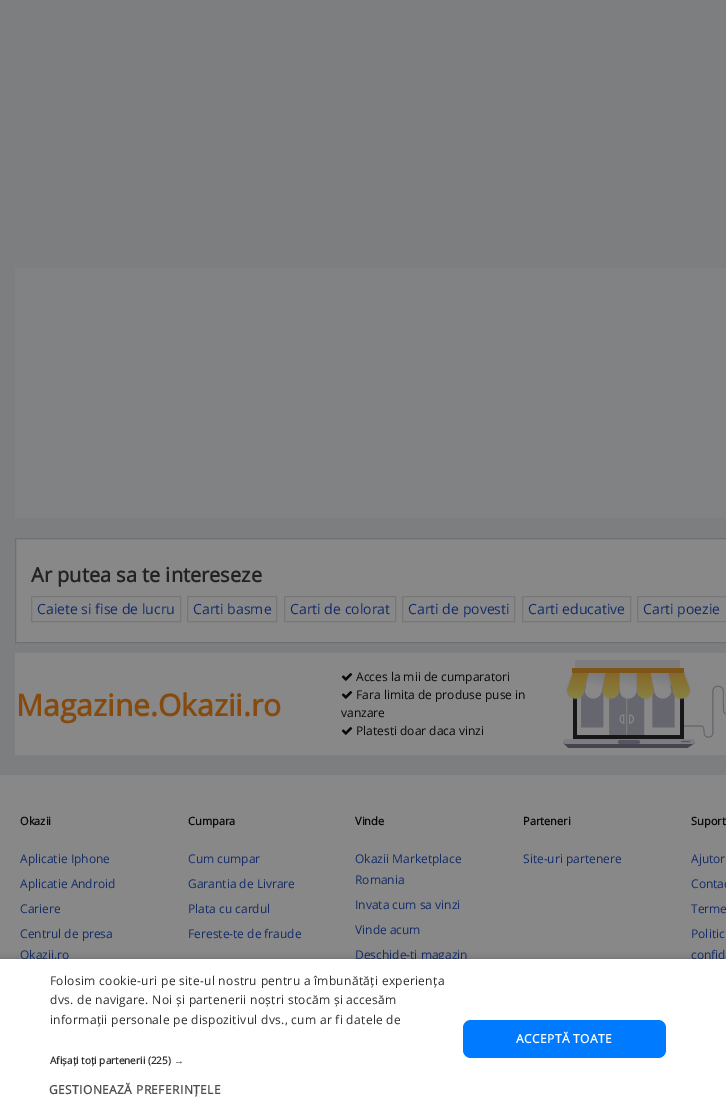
%!PS
<< /PageSize [726 1120] /PageUsesTransparency true >> setpagedevice
/alpha { dup .setfillconstantalpha .setstrokeconstantalpha } def
/roundrect { 5 dict begin { /r /h /w /y /x } { exch def } forall
  x r add y moveto x w add y 2 copy h add r arct x w add y h add x 1 index r arct
  x y h add x y r arct x y 2 copy exch w add exch r arct closepath end } def
/shadow { 12 dict begin { /a /b /q /h /w /y /x } { exch def } forall gsave /was 0 def
  9 -2 -9 { dup b mul 4 div /e exch def 1 sub .425 mul 2.718 exch exp 1 add a .99 .min exch div /now exch def
    1 1 now sub 1 was sub div sub alpha /was now def
    w h .min e 2 mul add 0 gt { x e sub y e sub w e 2 mul add h e 2 mul add
      q e add b .6 mul add w h .min 2 div e add .min 0 .max roundrect fill } if } for grestore end } def
/picture { 5 dict begin { /h /w /y /x /name } { exch def } forall
  gsave x y translate w h scale
  w h 8 [w 0 0 h 0 0] name (r) file false 3 colorimage grestore end } def
0 .pushpdf14devicefilter
0 1120 translate 1 -1 scale
4 setmiterlimit
0.49 0.494 0.502 setrgbcolor
0 0 726 1120 rectfill
0.506 0.51 0.514 setrgbcolor
15 268 711 250 rectfill
0.533 setgray
newpath 15.5 538.5 moveto 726.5 538.5 lineto 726.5 642.5 lineto 15.5 642.5 lineto closepath gsave fill grestore
0.435 setgray
stroke
/OpenSans-Bold [20 0 0 -20 0 0] selectfont
0.133 setgray
31 582 moveto (Ar putea sa te intereseze) show
0.467 setgray
31.5 596.5 149 25 rectstroke
/OpenSans-Regular [14 0 0 -14 0 0] selectfont
0.075 0.173 0.408 setrgbcolor
37 614 moveto (Caiete si fise de lucru) show
0.467 setgray
187.5 596.5 89 25 rectstroke
0.075 0.173 0.408 setrgbcolor
193 614 moveto (Carti basme) show
0.467 setgray
284.5 596.5 111 25 rectstroke
0.075 0.173 0.408 setrgbcolor
290 614 moveto (Carti de colorat) show
0.467 setgray
402.5 596.5 112 25 rectstroke
0.075 0.173 0.408 setrgbcolor
408 614 moveto (Carti de povesti) show
0.467 setgray
522.5 596.5 108 25 rectstroke
0.075 0.173 0.408 setrgbcolor
528 614 moveto (Carti educative) show
0.467 setgray
637.5 596.5 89 25 rectstroke
0.075 0.173 0.408 setrgbcolor
643 614 moveto (Carti poezie) show
0.533 setgray
15 653 711 102 rectfill
/OpenSans-Bold [30 0 0 -30 0 0] selectfont
0.522 0.29 0.055 setrgbcolor
16 716 moveto (Magazine.Okazii.ro) show
(img1.rgb) 341 673 12 8 picture
/OpenSans-Regular [12 0 0 -12 0 0] selectfont
0.035 setgray
356 681 moveto (Acces la mii de cumparatori) show
(img1.rgb) 341 691 12 8 picture
356 699 moveto (Fara limita de produse puse in) show
341 717 moveto (vanzare) show
(img1.rgb) 341 727 12 8 picture
356 735 moveto (Platesti doar daca vinzi) show
(img2.rgb) 563 660 163 88 picture
0.533 setgray
0 775 726 184 rectfill
/OpenSans-Bold [11 0 0 -11 0 0] selectfont
0.035 setgray
20 825 moveto (Okazii) show
/OpenSans-Regular [12 0 0 -12 0 0] selectfont
0.075 0.173 0.408 setrgbcolor
20 863 moveto (Aplicatie Iphone) show
20 888 moveto (Aplicatie Android) show
20 913 moveto (Cariere) show
20 938 moveto (Centrul de presa) show
20 959 moveto (Okazii.ro) show
/OpenSans-Bold [11 0 0 -11 0 0] selectfont
0.035 setgray
188 825 moveto (Cumpara) show
/OpenSans-Regular [12 0 0 -12 0 0] selectfont
0.075 0.173 0.408 setrgbcolor
188 863 moveto (Cum cumpar) show
188 888 moveto (Garantia de Livrare) show
188 913 moveto (Plata cu cardul) show
188 938 moveto (Fereste-te de fraude) show
/OpenSans-Bold [11 0 0 -11 0 0] selectfont
0.035 setgray
355 825 moveto (Vinde) show
/OpenSans-Regular [12 0 0 -12 0 0] selectfont
0.075 0.173 0.408 setrgbcolor
355 863 moveto (Okazii Marketplace) show
355 884 moveto (Romania) show
355 909 moveto (Invata cum sa vinzi) show
355 934 moveto (Vinde acum) show
355 959 moveto (Deschide-ti magazin) show
/OpenSans-Bold [11 0 0 -11 0 0] selectfont
0.035 setgray
523 825 moveto (Parteneri) show
/OpenSans-Regular [12 0 0 -12 0 0] selectfont
0.075 0.173 0.408 setrgbcolor
523 863 moveto (Site-uri partenere) show
/OpenSans-Bold [11 0 0 -11 0 0] selectfont
0.035 setgray
691 825 moveto (Suport) show
/OpenSans-Regular [12 0 0 -12 0 0] selectfont
0.075 0.173 0.408 setrgbcolor
691 863 moveto (Ajutor) show
691 888 moveto (Contac) show
691 913 moveto (Terme) show
691 938 moveto (Politic) show
691 959 moveto (confid) show
0 setgray
1 961 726 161 0 4 0.35 shadow
1 setgray
0 959 726 161 rectfill
0.176 setgray
50 985 moveto 0.3 0 (Folosim cookie-uri pe site-ul nostru pentru a îmbunătăți experiența) ashow
50 1004 moveto 0.3 0 (dvs. de navigare. Noi și partenerii noștri stocăm și accesăm) ashow
50 1024 moveto 0.3 0 (informații personale pe dispozitivul dvs., cum ar fi datele de) ashow
/OpenSans-Bold [10 0 0 -10 0 0] selectfont
50 1064 moveto (Afișați toți partenerii \(225\)) show
/LiberationSans-Bold [10 0 0 -10 0 0] selectfont
174 1064 moveto (→) show
/OpenSans-Bold [12 0 0 -12 0 0] selectfont
0.302 setgray
49 1094 moveto 0.4 0 (GESTIONEAZĂ PREFERINȚELE) ashow
0 0.482 1 setrgbcolor
463 1020 203 38 8 roundrect fill
1 setgray
516 1043 moveto 0.4 0 (ACCEPTĂ TOATE) ashow
.poppdf14devicefilter showpage
